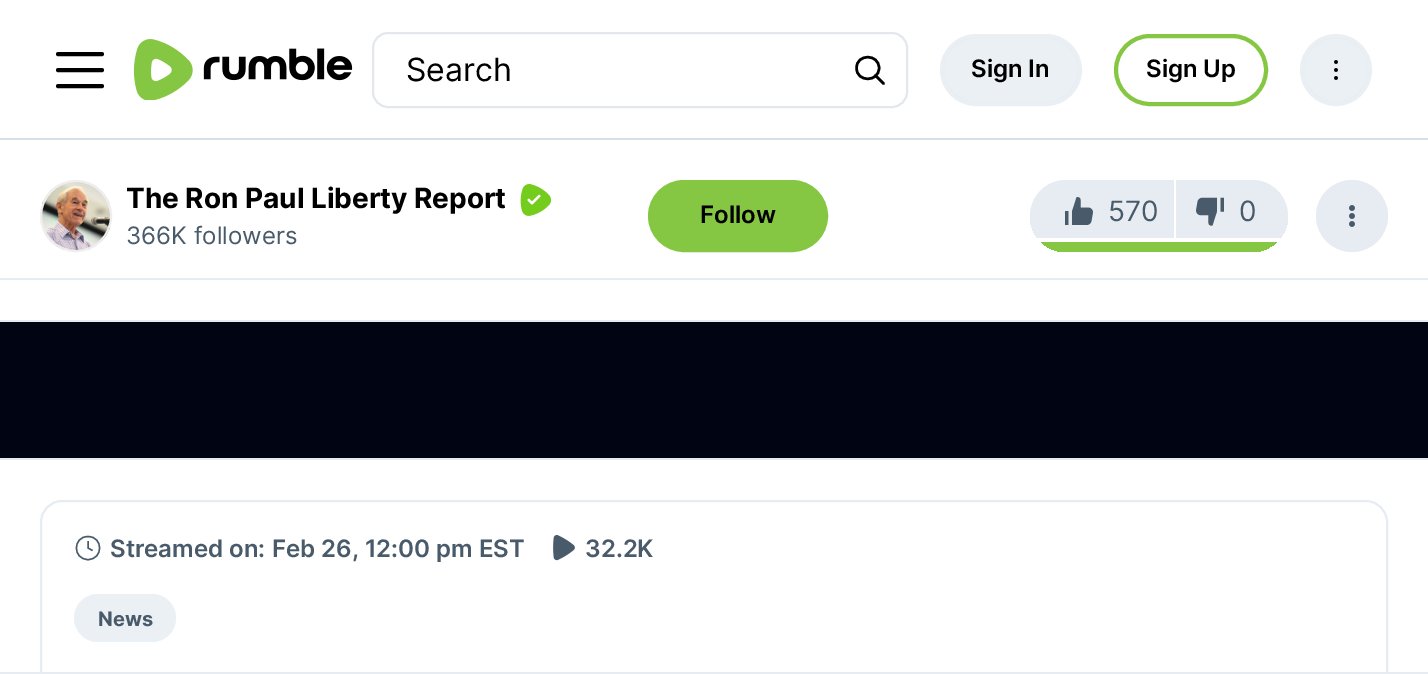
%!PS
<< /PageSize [1428 674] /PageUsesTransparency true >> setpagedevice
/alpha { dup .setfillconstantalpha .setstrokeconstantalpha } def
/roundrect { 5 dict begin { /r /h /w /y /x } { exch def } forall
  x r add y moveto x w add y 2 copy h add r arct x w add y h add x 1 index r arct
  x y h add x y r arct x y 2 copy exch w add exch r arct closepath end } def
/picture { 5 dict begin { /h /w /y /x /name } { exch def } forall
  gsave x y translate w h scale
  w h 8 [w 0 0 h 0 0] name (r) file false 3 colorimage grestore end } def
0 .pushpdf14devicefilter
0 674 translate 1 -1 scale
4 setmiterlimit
1 setgray
0 0 1428 674 rectfill
0.839 0.878 0.918 setrgbcolor
0 138 1428 2 rectfill
0 setgray
4 setlinewidth
1 setlinecap
1 setlinejoin
newpath 58 54 moveto 102 54 lineto 58 70 moveto 102 70 lineto 58 86 moveto 102 86 lineto stroke
(img1.rgb) 133 39 60 61 picture
(img2.rgb) 203 48 150 33 picture
0.894 0.91 0.925 setrgbcolor
2 setlinewidth
0 setlinecap
0 setlinejoin
373 33 534 74 15 roundrect stroke
/Inter-Regular [32 0 0 -32 0 0] selectfont
0 setgray
406 81 moveto (Search) show
2.5 setlinewidth
1 setlinecap
newpath 875.5 75.5 moveto 883.5 83.5 lineto 856.5 68 moveto 856.5 82.5 879 82.5 879 68 curveto 879 53.5 856.5 53.5 856.5 68 curveto stroke
0.922 0.941 0.961 setrgbcolor
944 38 134 64 32 roundrect fill
0.5 alpha
0.839 0.878 0.918 setrgbcolor
4 setlinewidth
0 setlinecap
942 36 138 68 34 roundrect stroke
/Inter-SemiBold [24 0 0 -24 0 0] selectfont
1 alpha
0 setgray
971 77 moveto (Sign In) show
0.522 0.78 0.259 setrgbcolor
1116 36 150 68 34 roundrect stroke
0 setgray
1146 77 moveto (Sign Up) show
0.922 0.941 0.961 setrgbcolor
newpath 1336 70 32 0 360 arc closepath fill
0.5 alpha
0.839 0.878 0.918 setrgbcolor
newpath 1336 70 34 0 360 arc closepath stroke
1 alpha
(img3.rgb) 1334 60 4 20 picture
0.902 0.925 0.949 setrgbcolor
0 278 1428 2 rectfill
(img4.rgb) 42 182 68 68 picture
0.933 setgray
2 setlinewidth
newpath 76 216 35 0 360 arc closepath stroke
/Inter-Bold [28 0 0 -28 0 0] selectfont
0 setgray
126 208 moveto (The Ron Paul Liberty Report) show
(img5.rgb) 520 184 31 32 picture
/Inter-Regular [24 0 0 -24 0 0] selectfont
0.286 0.353 0.416 setrgbcolor
126 244 moveto (366K followers) show
0.522 0.78 0.259 setrgbcolor
650 182 176 68 34 roundrect gsave fill grestore
4 setlinewidth
stroke
/Inter-SemiBold [24 0 0 -24 0 0] selectfont
0 setgray
700 223 moveto (Follow) show
gsave
1030 180 258 72 36 roundrect clip newpath
0.902 0.925 0.949 setrgbcolor
newpath 1066 180 moveto 1174 180 lineto 1174 238 lineto 1030 238 lineto 1030 216 lineto 1030 196 1046 180 1066 180 curveto closepath fill
grestore
(img6.rgb) 1065 197 28 28 picture
/Inter-Regular [28 0 0 -28 0 0] selectfont
0.286 0.353 0.416 setrgbcolor
1108 221 moveto (570) show
gsave
1030 180 258 72 36 roundrect clip newpath
0.902 0.925 0.949 setrgbcolor
newpath 1176 180 moveto 1252 180 lineto 1272 180 1288 196 1288 216 curveto 1288 238 lineto 1176 238 lineto closepath fill
grestore
(img7.rgb) 1196 197 28 29 picture
1239 221 moveto (0) show
gsave
1030 180 258 72 36 roundrect clip newpath
0.522 0.78 0.259 setrgbcolor
1030 242 258 10 5 roundrect fill
grestore
0.902 0.925 0.949 setrgbcolor
newpath 1352 216 36 0 360 arc closepath fill
(img8.rgb) 1349 205 6 22 picture
0 320 1428 2 rectfill
0 458 1428 2 rectfill
0.004 0.016 0.075 setrgbcolor
0 322 1428 136 rectfill
0.902 0.925 0.949 setrgbcolor
2 setlinewidth
41 501 1346 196 21 roundrect stroke
0.286 0.353 0.416 setrgbcolor
1.4 setlinewidth
newpath 88 559.5 moveto 103.5 559.5 103.5 536.5 88 536.5 curveto 72.5 536.5 72.5 559.5 88 559.5 curveto closepath 88 541 moveto 88 548 lineto 92.5 550.5 lineto stroke
/Inter-SemiBold [24 0 0 -24 0 0] selectfont
110 557 moveto (Streamed on:) show
272 557 moveto (Feb 26, 12:00 pm EST) show
(img9.rgb) 553 535 22 26 picture
585 557 moveto (32.2K) show
0.922 0.941 0.961 setrgbcolor
74 594 102 48 24 roundrect fill
/Inter-Bold [20 0 0 -20 0 0] selectfont
0.286 0.353 0.416 setrgbcolor
98 626 moveto (News) show
0.902 0.925 0.949 setrgbcolor
0 672 1428 2 rectfill
.poppdf14devicefilter showpage
